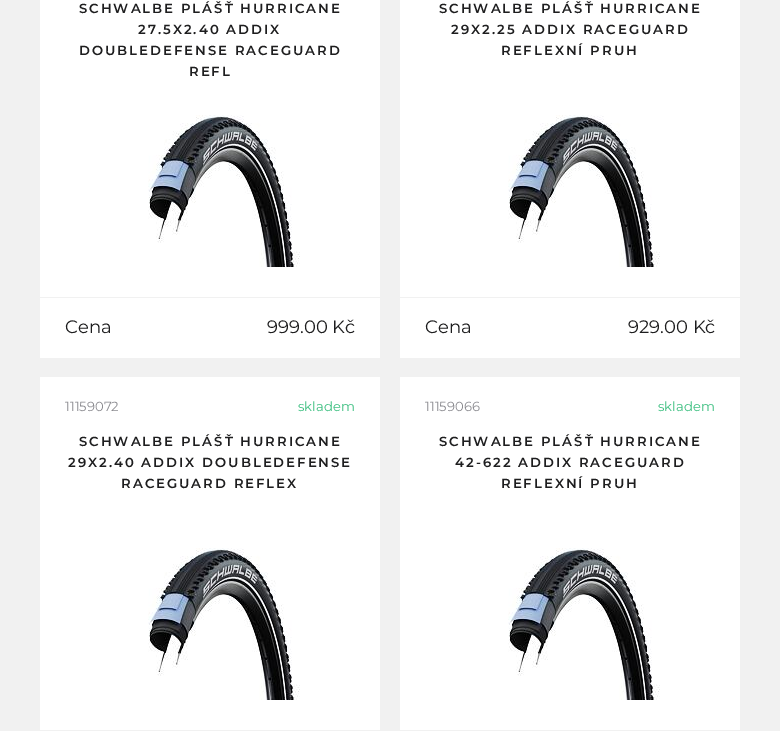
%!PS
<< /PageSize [780 731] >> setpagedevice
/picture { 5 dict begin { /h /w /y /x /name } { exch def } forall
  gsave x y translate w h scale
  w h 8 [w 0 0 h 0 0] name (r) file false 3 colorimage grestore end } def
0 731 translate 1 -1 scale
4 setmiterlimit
0.945 setgray
0 0 780 731 rectfill
1 setgray
40 0 340 358 rectfill
/Montserrat-SemiBold [13.2 0 0 -13.2 0 0] selectfont
0.118 0.118 0.122 setrgbcolor
79 13 moveto 2 0 (SCHWALBE PLÁŠŤ HURRICANE) ashow
138 34 moveto 2 0 (27.5X2.40 ADDIX) ashow
79 55 moveto 2 0 (DOUBLEDEFENSE RACEGUARD) ashow
189 76 moveto 2 0 (REFL) ashow
(img1.rgb) 148 115 152 152 picture
0.945 setgray
40 297 340 1 rectfill
/Montserrat-Regular [18 0 0 -18 0 0] selectfont
0.118 0.118 0.122 setrgbcolor
65 333 moveto (Cena) show
267 333 moveto (999.00 Kč) show
1 setgray
400 0 340 358 rectfill
/Montserrat-SemiBold [13.2 0 0 -13.2 0 0] selectfont
0.118 0.118 0.122 setrgbcolor
439 13 moveto 2 0 (SCHWALBE PLÁŠŤ HURRICANE) ashow
451 34 moveto 2 0 (29X2.25 ADDIX RACEGUARD) ashow
501 55 moveto 2 0 (REFLEXNÍ PRUH) ashow
(img1.rgb) 508 115 152 152 picture
0.945 setgray
400 297 340 1 rectfill
/Montserrat-Regular [18 0 0 -18 0 0] selectfont
0.118 0.118 0.122 setrgbcolor
425 333 moveto (Cena) show
628 333 moveto (929.00 Kč) show
1 setgray
40 377 340 353 rectfill
/Montserrat-Regular [13.2 0 0 -13.2 0 0] selectfont
0.545 0.545 0.565 setrgbcolor
65 411 moveto (11159072) show
0.235 0.749 0.502 setrgbcolor
298 411 moveto (skladem) show
/Montserrat-SemiBold [13.2 0 0 -13.2 0 0] selectfont
0.118 0.118 0.122 setrgbcolor
79 446 moveto 2 0 (SCHWALBE PLÁŠŤ HURRICANE) ashow
68 467 moveto 2 0 (29X2.40 ADDIX DOUBLEDEFENSE) ashow
121 488 moveto 2 0 (RACEGUARD REFLEX) ashow
(img1.rgb) 148 548 152 152 picture
1 setgray
400 377 340 353 rectfill
/Montserrat-Regular [13.2 0 0 -13.2 0 0] selectfont
0.545 0.545 0.565 setrgbcolor
425 411 moveto (11159066) show
0.235 0.749 0.502 setrgbcolor
658 411 moveto (skladem) show
/Montserrat-SemiBold [13.2 0 0 -13.2 0 0] selectfont
0.118 0.118 0.122 setrgbcolor
439 446 moveto 2 0 (SCHWALBE PLÁŠŤ HURRICANE) ashow
455 467 moveto 2 0 (42-622 ADDIX RACEGUARD) ashow
501 488 moveto 2 0 (REFLEXNÍ PRUH) ashow
(img1.rgb) 508 548 152 152 picture
showpage
